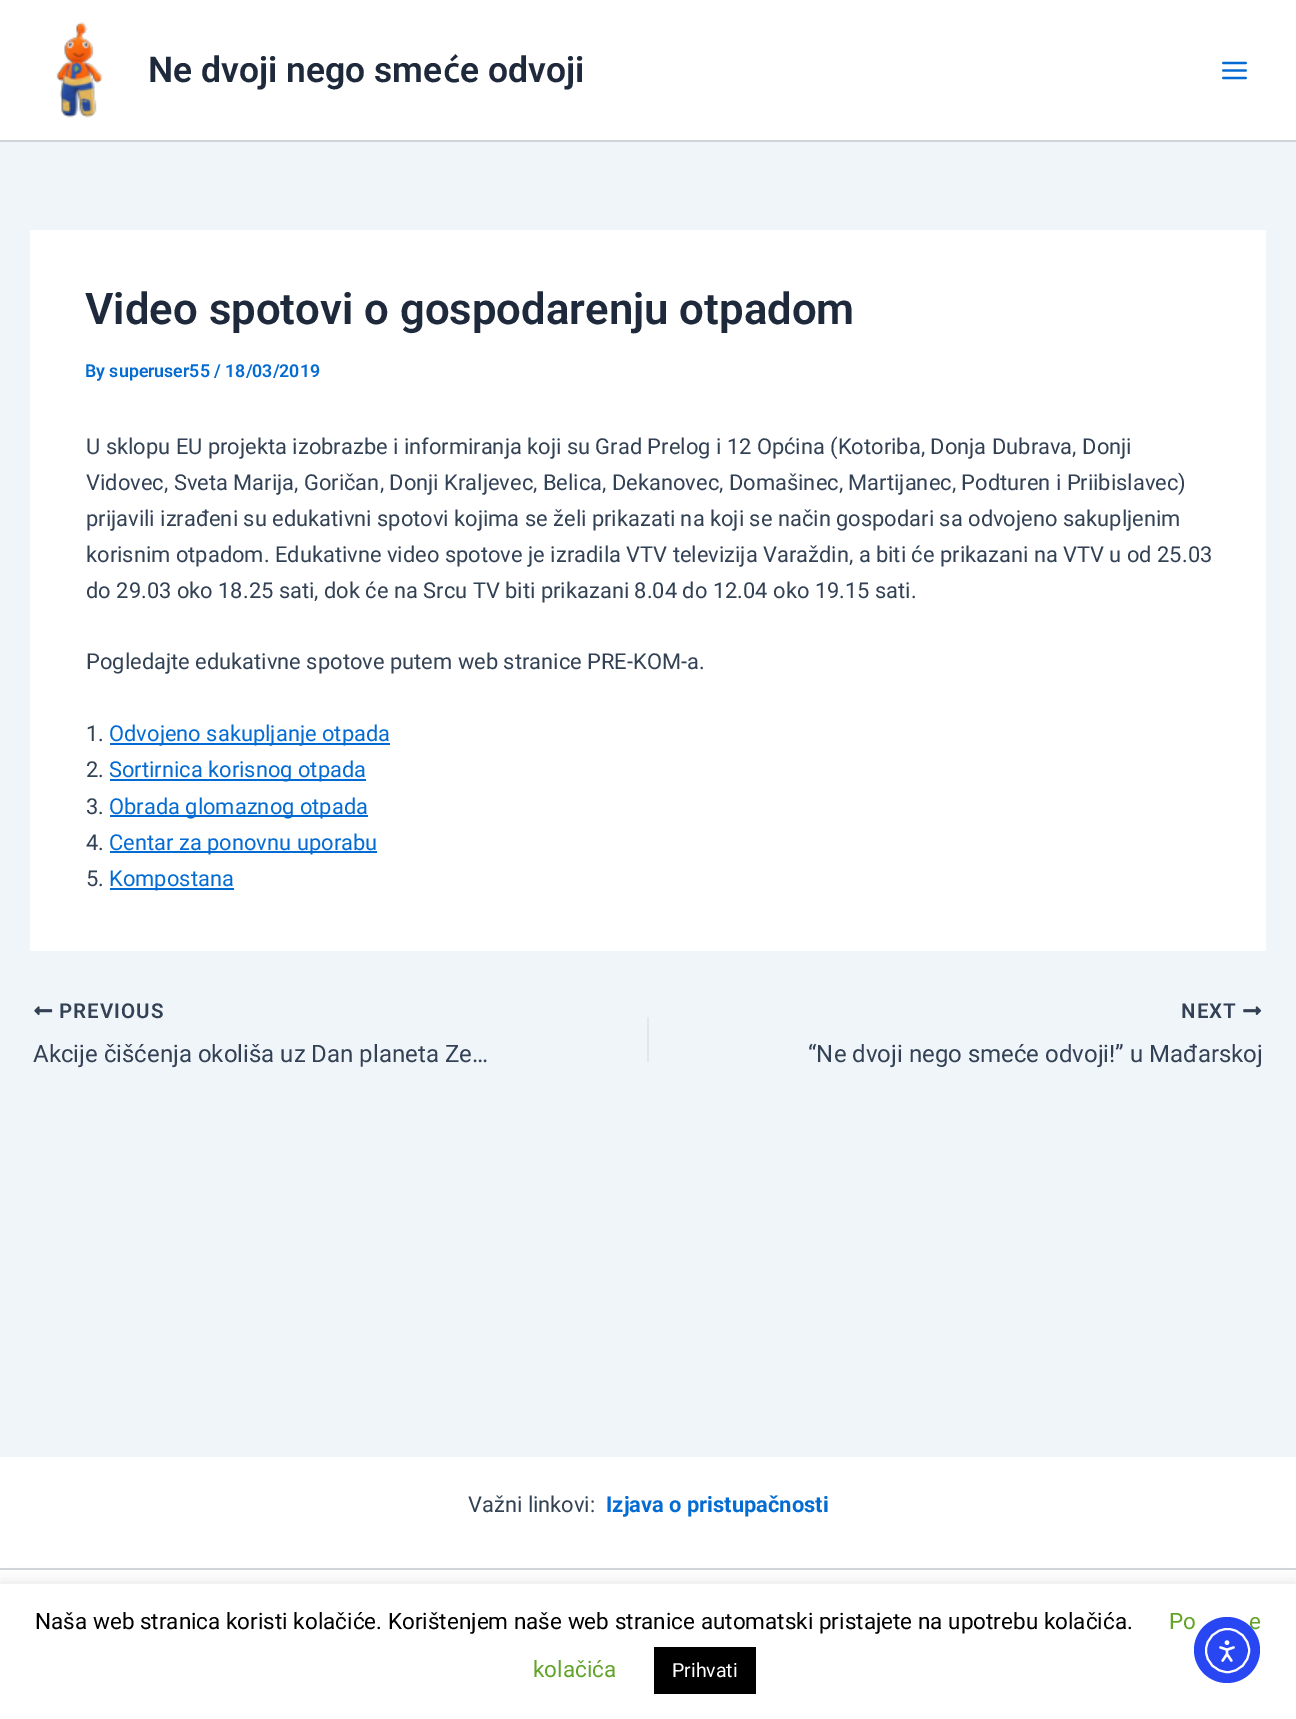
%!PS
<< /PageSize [1296 1719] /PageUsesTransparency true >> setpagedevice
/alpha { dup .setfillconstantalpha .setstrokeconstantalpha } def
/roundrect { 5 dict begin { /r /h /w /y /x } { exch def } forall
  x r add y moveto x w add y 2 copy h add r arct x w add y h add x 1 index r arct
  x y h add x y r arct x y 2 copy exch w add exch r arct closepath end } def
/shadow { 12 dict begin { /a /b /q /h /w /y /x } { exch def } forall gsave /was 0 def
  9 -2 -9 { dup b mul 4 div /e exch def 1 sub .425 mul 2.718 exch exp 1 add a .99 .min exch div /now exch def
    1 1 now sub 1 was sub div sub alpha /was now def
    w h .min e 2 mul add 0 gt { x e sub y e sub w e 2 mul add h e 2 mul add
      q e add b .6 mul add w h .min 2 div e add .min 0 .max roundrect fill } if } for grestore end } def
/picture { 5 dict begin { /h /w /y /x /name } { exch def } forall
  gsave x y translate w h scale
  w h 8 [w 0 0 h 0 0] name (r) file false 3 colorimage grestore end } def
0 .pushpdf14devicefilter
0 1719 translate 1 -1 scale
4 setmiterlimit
0.941 0.961 0.98 setrgbcolor
0 0 1296 1719 rectfill
1 setgray
0 0 1296 140 rectfill
0.82 0.835 0.859 setrgbcolor
0 140 1296 2 rectfill
(img1.rgb) 56 22 47 96 picture
/Roboto-SemiBold [35.5 0 0 -35.5 0 0] selectfont
0.118 0.161 0.231 setrgbcolor
148 82 moveto (Ne dvoji nego sme) show
/Ubuntu-SemiBold [35.5 0 0 -35.5 0 0] selectfont
443 82 moveto (ć) show
/Roboto-SemiBold [35.5 0 0 -35.5 0 0] selectfont
460 82 moveto (e odvoji) show
(img2.rgb) 1222 61 25 19 picture
1 setgray
30 230 1236 721 rectfill
/Roboto-SemiBold [43.75 0 0 -43.75 0 0] selectfont
0.118 0.161 0.231 setrgbcolor
85 324 moveto (Video spotovi o gospodarenju otpadom) show
/Roboto-SemiBold [17.75 0 0 -17.75 0 0] selectfont
0.016 0.42 0.824 setrgbcolor
85 377 moveto (By superuser55 / 18/03/2019) show
/Roboto-Regular [21.9 0 0 -21.9 0 0] selectfont
0.2 0.255 0.333 setrgbcolor
86 454 moveto (U sklopu EU projekta izobrazbe i informiranja koji su Grad Prelog i 12 Općina \(Kotoriba, Donja Dubrava, Donji) show
86 490 moveto (Vidovec, Sveta Marija, Goričan, Donji Kraljevec, Belica, Dekanovec, Domašinec, Martijanec, Podturen i Priibislavec\)) show
86 526 moveto (prijavili izrađeni su edukativni spotovi kojima se želi prikazati na koji se način gospodari sa odvojeno sakupljenim) show
86 562 moveto (korisnim otpadom. Edukativne video spotove je izradila VTV televizija Varaždin, a biti će prikazani na VTV u od 25.03) show
86 598 moveto (do 29.03 oko 18.25 sati, dok će na Srcu TV biti prikazani 8.04 do 12.04 oko 19.15 sati.) show
86 669 moveto (Pogledajte edukativne spotove putem web stranice PRE-KOM-a.) show
86 741 moveto (1.) show
0.016 0.42 0.824 setrgbcolor
110 743 280 2 rectfill
109 741 moveto (Odvojeno sakupljanje otpada) show
0.2 0.255 0.333 setrgbcolor
86 777 moveto (2.) show
0.016 0.42 0.824 setrgbcolor
110 779 256 2 rectfill
109 777 moveto (Sortirnica korisnog otpada) show
0.2 0.255 0.333 setrgbcolor
86 814 moveto (3.) show
0.016 0.42 0.824 setrgbcolor
110 815 258 2 rectfill
109 814 moveto (Obrada glomaznog otpada) show
0.2 0.255 0.333 setrgbcolor
86 850 moveto (4.) show
0.016 0.42 0.824 setrgbcolor
110 851 267 2 rectfill
109 850 moveto (Centar za ponovnu uporabu) show
0.2 0.255 0.333 setrgbcolor
86 886 moveto (5.) show
0.016 0.42 0.824 setrgbcolor
110 888 124 2 rectfill
109 886 moveto (Kompostana) show
(img3.rgb) 34 1006 19 9 picture
/Roboto-SemiBold [20.5 0 0 -20.5 0 0] selectfont
0.2 0.255 0.333 setrgbcolor
59 1018 moveto 1 0 (PREVIOUS) ashow
/Roboto-Regular [24 0 0 -24 0 0] selectfont
33 1062 moveto (Akcije čišćenja okoliša uz Dan planeta Ze…) show
0.882 0.91 0.929 setrgbcolor
647 1017 2 45 rectfill
/Roboto-SemiBold [20.5 0 0 -20.5 0 0] selectfont
0.2 0.255 0.333 setrgbcolor
1181 1018 moveto 1 0 (NEXT) ashow
(img4.rgb) 1243 1006 19 9 picture
/Roboto-Regular [24 0 0 -24 0 0] selectfont
808 1062 moveto (“Ne dvoji nego smeće odvoji!” u Mađarskoj) show
1 setgray
0 1457 1296 111 rectfill
/Roboto-Regular [21.9 0 0 -21.9 0 0] selectfont
0.2 0.255 0.333 setrgbcolor
468 1512 moveto (Važni linkovi:) show
/Roboto-Bold [21.9 0 0 -21.9 0 0] selectfont
0.016 0.42 0.824 setrgbcolor
606 1512 moveto (Izjava o pristupačnosti) show
1 setgray
0 1570 1296 14 rectfill
0.82 0.835 0.859 setrgbcolor
0 1568 1296 2 rectfill
0.675 0.671 0.671 setrgbcolor
0 1583 1296 135 0 7.5 0.3 shadow
1 setgray
0 1584 1296 135 rectfill
/Roboto-Regular [22.5 0 0 -22.5 0 0] selectfont
0 setgray
35 1629 moveto (Naša web stranica koristi kolačiće. Korištenjem naše web stranice automatski pristajete na upotrebu kolačića.) show
0.384 0.639 0.161 setrgbcolor
1169 1629 moveto (Po) show
1249 1629 moveto (e) show
533 1677 moveto (kolačića) show
0 setgray
654 1647 102 47 rectfill
/Roboto-Regular [19.5 0 0 -19.5 0 0] selectfont
1 setgray
672 1677 moveto (Prihvati) show
0.157 0.278 0.953 setrgbcolor
newpath 1227 1650 33 0 360 arc closepath fill
1 setgray
2 setlinewidth
newpath 1227.5 1650.5 21.5 0 360 arc closepath stroke
(img5.rgb) 1219 1640 16 22 picture
.poppdf14devicefilter showpage
